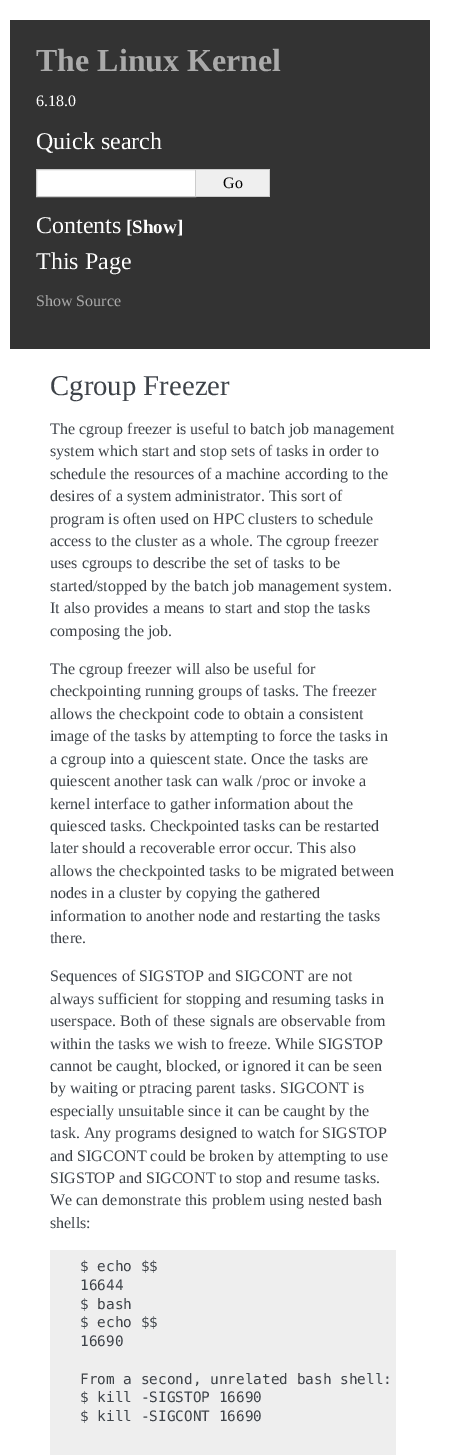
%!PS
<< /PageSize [451 1455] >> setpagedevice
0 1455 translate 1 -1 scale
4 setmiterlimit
1 setgray
0 0 451 1455 rectfill
0.2 setgray
10 20 420 329 rectfill
/LiberationSerif-Bold [32 0 0 -32 0 0] selectfont
0.667 setgray
36 71 moveto (The Linux Kernel) show
/LiberationSerif-Regular [16 0 0 -16 0 0] selectfont
1 setgray
36 106 moveto (6.18.0) show
/LiberationSerif-Regular [24 0 0 -24 0 0] selectfont
36 149 moveto (Quick search) show
newpath 36.5 169.5 moveto 195.5 169.5 lineto 195.5 196.5 lineto 36.5 196.5 lineto closepath gsave fill grestore
0.8 setgray
stroke
0.937 setgray
196 170 73 26 rectfill
0.8 setgray
196 169 74 1 rectfill
269 169 1 28 rectfill
196 196 74 1 rectfill
/LiberationSerif-Regular [16 0 0 -16 0 0] selectfont
0 setgray
223 188 moveto (Go) show
/LiberationSerif-Regular [24 0 0 -24 0 0] selectfont
1 setgray
36 233 moveto (Contents) show
/LiberationSerif-Bold [19 0 0 -19 0 0] selectfont
126 233 moveto ([Show]) show
/LiberationSerif-Regular [24 0 0 -24 0 0] selectfont
36 269 moveto (This Page) show
/LiberationSerif-Regular [16 0 0 -16 0 0] selectfont
0.667 setgray
36 306 moveto (Show Source) show
/LiberationSerif-Regular [28.75 0 0 -28.75 0 0] selectfont
0.243 0.263 0.286 setrgbcolor
50 395 moveto (Cgroup Freezer) show
/LiberationSerif-Regular [16 0 0 -16 0 0] selectfont
50 434 moveto (The cgroup freezer is useful to batch job management) show
50 456 moveto (system which start and stop sets of tasks in order to) show
50 479 moveto (schedule the resources of a machine according to the) show
50 501 moveto (desires of a system administrator. This sort of) show
50 524 moveto (program is often used on HPC clusters to schedule) show
50 546 moveto (access to the cluster as a whole. The cgroup freezer) show
50 568 moveto (uses cgroups to describe the set of tasks to be) show
50 591 moveto (started/stopped by the batch job management system.) show
50 613 moveto (It also provides a means to start and stop the tasks) show
50 636 moveto (composing the job.) show
50 674 moveto (The cgroup freezer will also be useful for) show
50 696 moveto (checkpointing running groups of tasks. The freezer) show
50 719 moveto (allows the checkpoint code to obtain a consistent) show
50 741 moveto (image of the tasks by attempting to force the tasks in) show
50 764 moveto (a cgroup into a quiescent state. Once the tasks are) show
50 786 moveto (quiescent another task can walk /proc or invoke a) show
50 809 moveto (kernel interface to gather information about the) show
50 831 moveto (quiesced tasks. Checkpointed tasks can be restarted) show
50 853 moveto (later should a recoverable error occur. This also) show
50 876 moveto (allows the checkpointed tasks to be migrated between) show
50 898 moveto (nodes in a cluster by copying the gathered) show
50 921 moveto (information to another node and restarting the tasks) show
50 943 moveto (there.) show
50 981 moveto (Sequences of SIGSTOP and SIGCONT are not) show
50 1004 moveto (always sufficient for stopping and resuming tasks in) show
50 1026 moveto (userspace. Both of these signals are observable from) show
50 1049 moveto (within the tasks we wish to freeze. While SIGSTOP) show
50 1071 moveto (cannot be caught, blocked, or ignored it can be seen) show
50 1093 moveto (by waiting or ptracing parent tasks. SIGCONT is) show
50 1116 moveto (especially unsuitable since it can be caught by the) show
50 1138 moveto (task. Any programs designed to watch for SIGSTOP) show
50 1161 moveto (and SIGCONT could be broken by attempting to use) show
50 1183 moveto (SIGSTOP and SIGCONT to stop and resume tasks.) show
50 1205 moveto (We can demonstrate this problem using nested bash) show
50 1228 moveto (shells:) show
0.933 setgray
50 1250 346 205 rectfill
/DejaVuSansMono-Regular [14.4 0 0 -14.4 0 0] selectfont
0.243 0.263 0.286 setrgbcolor
80 1271 moveto ($ echo $$) show
80 1290 moveto (16644) show
80 1309 moveto ($ bash) show
80 1327 moveto ($ echo $$) show
80 1346 moveto (16690) show
80 1384 moveto (From a second, unrelated bash shell:) show
80 1402 moveto ($ kill -SIGSTOP 16690) show
80 1421 moveto ($ kill -SIGCONT 16690) show
showpage
